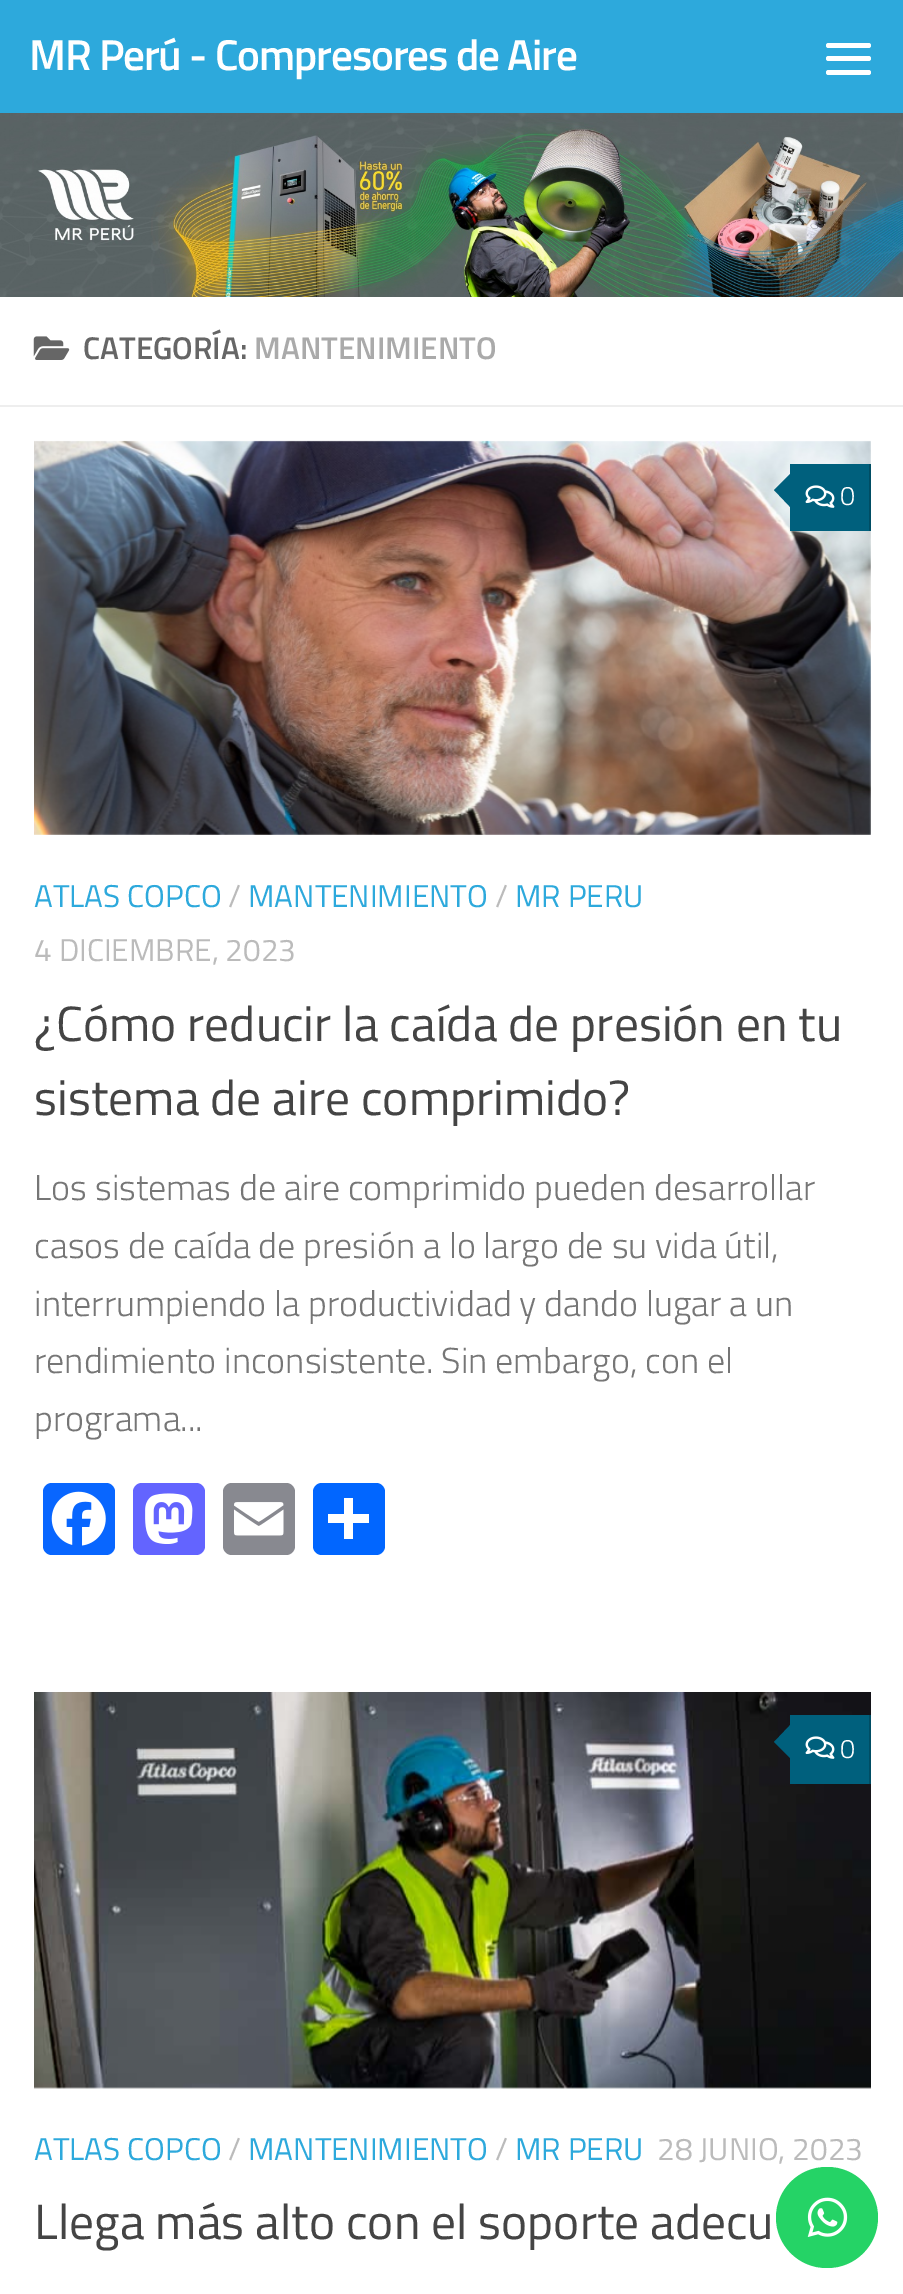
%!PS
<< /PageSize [903 2294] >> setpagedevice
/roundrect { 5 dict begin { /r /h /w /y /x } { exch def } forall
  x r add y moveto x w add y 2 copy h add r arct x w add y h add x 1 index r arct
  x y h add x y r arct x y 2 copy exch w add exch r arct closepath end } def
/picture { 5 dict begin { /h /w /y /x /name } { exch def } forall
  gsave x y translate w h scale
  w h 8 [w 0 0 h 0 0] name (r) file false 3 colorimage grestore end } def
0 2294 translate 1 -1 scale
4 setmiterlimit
1 setgray
0 0 903 2294 rectfill
0.176 0.663 0.863 setrgbcolor
0 0 903 113 rectfill
/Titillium-SemiBold [43.25 0 0 -43.25 0 0] selectfont
1 setgray
29 70 moveto -1.1 0 (MR Perú - Compresores de Aire) ashow
826 43 45 5 2.5 roundrect fill
826 56 45 5 2.5 roundrect fill
826 70 45 5 2.5 roundrect fill
(img1.rgb) 0 113 903 184 picture
0.933 setgray
0 405 903 2 rectfill
(img2.rgb) 33 336 37 24 picture
/Titillium-SemiBold [31.5 0 0 -31.5 0 0] selectfont
0.4 setgray
83 359 moveto (CATEGORÍA:) show
0.667 setgray
254 359 moveto (MANTENIMIENTO) show
(img3.rgb) 34 440 837 395 picture
0 0.376 0.49 setrgbcolor
790 464 79 67 rectfill
0 0.302 0.392 setrgbcolor
869 464 2 67 rectfill
0 0.376 0.49 setrgbcolor
newpath 794 470 moveto 794 511 lineto 774 490 lineto closepath fill
(img4.rgb) 805 485 30 23 picture
/Titillium-Light [27 0 0 -27 0 0] selectfont
1 setgray
840 505 moveto (0) show
/Titillium-Regular [31.5 0 0 -31.5 0 0] selectfont
0.176 0.663 0.863 setrgbcolor
34 907 moveto (ATLAS COPCO) show
0.733 setgray
228 907 moveto (/) show
0.176 0.663 0.863 setrgbcolor
248 907 moveto (MANTENIMIENTO) show
0.733 setgray
495 907 moveto (/) show
0.176 0.663 0.863 setrgbcolor
515 907 moveto (MR PERU) show
0.733 setgray
34 961 moveto (4 DICIEMBRE, 2023) show
/Titillium-Regular [49.5 0 0 -49.5 0 0] selectfont
0.267 setgray
34 1041 moveto (¿Cómo reducir la caída de presión en tu) show
34 1115 moveto (sistema de aire comprimido?) show
/Titillium-Light [36 0 0 -36 0 0] selectfont
0.463 setgray
34 1200 moveto (Los sistemas de aire comprimido pueden desarrollar) show
34 1258 moveto (casos de caída de presión a lo largo de su vida útil,) show
34 1316 moveto (interrumpiendo la productividad y dando lugar a un) show
34 1373 moveto (rendimiento inconsistente. Sin embargo, con el) show
34 1431 moveto (programa...) show
0.031 0.4 1 setrgbcolor
43 1483 72 72 9 roundrect fill
(img5.rgb) 51 1491 55 55 picture
0.388 0.392 1 setrgbcolor
133 1483 72 72 9 roundrect fill
(img6.rgb) 145 1493 48 51 picture
0.533 0.537 0.565 setrgbcolor
223 1483 72 72 9 roundrect fill
(img7.rgb) 234 1502 50 34 picture
0.004 0.4 1 setrgbcolor
313 1483 72 72 9 roundrect fill
1 setgray
344 1498 9 41 rectfill
328 1514 41 9 rectfill
(img8.rgb) 34 1692 837 397 picture
0 0.376 0.49 setrgbcolor
790 1715 79 69 rectfill
0 0.302 0.392 setrgbcolor
869 1715 2 69 rectfill
0 0.376 0.49 setrgbcolor
newpath 794 1721 moveto 794 1762 lineto 774 1742 lineto closepath fill
(img4.rgb) 805 1736 30 23 picture
/Titillium-Light [27 0 0 -27 0 0] selectfont
1 setgray
840 1758 moveto (0) show
/Titillium-Regular [31.5 0 0 -31.5 0 0] selectfont
0.176 0.663 0.863 setrgbcolor
34 2160 moveto (ATLAS COPCO) show
0.733 setgray
228 2160 moveto (/) show
0.176 0.663 0.863 setrgbcolor
248 2160 moveto (MANTENIMIENTO) show
0.733 setgray
495 2160 moveto (/) show
0.176 0.663 0.863 setrgbcolor
515 2160 moveto (MR PERU) show
0.733 setgray
657 2160 moveto (28 JUNIO, 2023) show
/Titillium-Regular [49.5 0 0 -49.5 0 0] selectfont
0.267 setgray
34 2239 moveto (Llega más alto con el soporte adecu) show
0.145 0.827 0.4 setrgbcolor
776 2167 102 101 50.5 roundrect fill
(img9.rgb) 807 2197 41 40 picture
showpage
